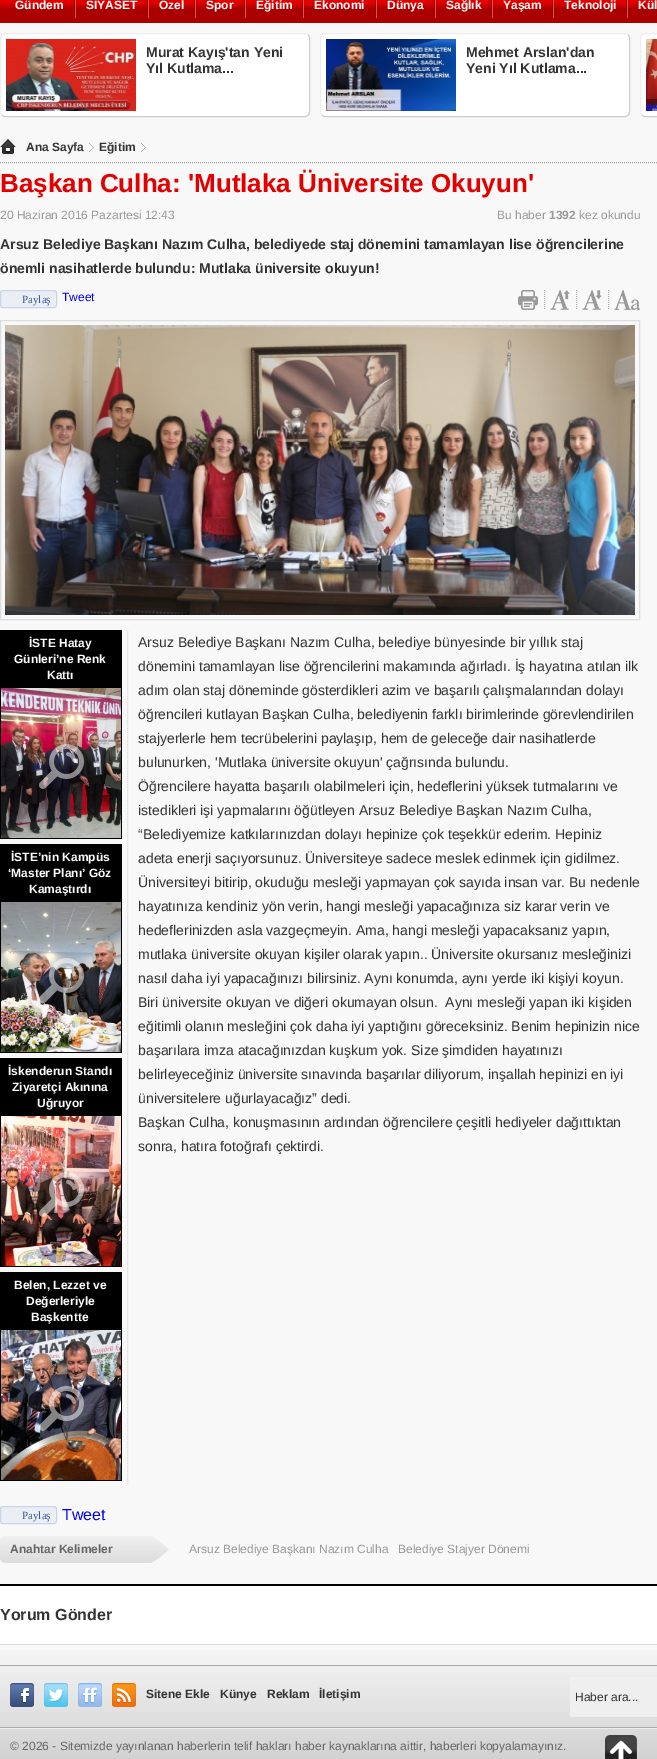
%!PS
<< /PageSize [657 1759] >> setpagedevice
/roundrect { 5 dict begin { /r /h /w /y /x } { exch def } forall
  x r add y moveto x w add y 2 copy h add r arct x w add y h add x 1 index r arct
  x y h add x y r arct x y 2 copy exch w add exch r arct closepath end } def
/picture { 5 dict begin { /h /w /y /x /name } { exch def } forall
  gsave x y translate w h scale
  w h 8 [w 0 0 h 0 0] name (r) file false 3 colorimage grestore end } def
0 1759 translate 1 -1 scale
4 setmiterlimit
0.973 setgray
0 0 657 1759 rectfill
(img1.rgb) 0 0 657 23 picture
/LiberationSans-Bold [12 0 0 -12 0 0] selectfont
1 setgray
15 9 moveto (Gündem) show
(img2.rgb) 74 0 2 18 picture
86 9 moveto (SİYASET) show
(img2.rgb) 147 0 2 18 picture
159 9 moveto (Özel) show
(img2.rgb) 194 0 2 18 picture
206 9 moveto (Spor) show
(img2.rgb) 244 0 2 18 picture
256 9 moveto (Eğitim) show
(img2.rgb) 302 0 2 18 picture
314 9 moveto (Ekonomi) show
(img2.rgb) 375 0 2 18 picture
387 9 moveto (Dünya) show
(img2.rgb) 434 0 2 18 picture
446 9 moveto (Sağlık) show
(img2.rgb) 491 0 2 18 picture
503 9 moveto (Yaşam) show
(img2.rgb) 552 0 2 18 picture
564 9 moveto (Teknoloji) show
(img2.rgb) 626 0 2 18 picture
638 9 moveto (Kül) show
0 33 310 84 5 roundrect fill
0.8 setgray
newpath 308 35 moveto 309 35.5 309.5 37 309.5 38 curveto 309.5 112 lineto 309.5 113 309 114.5 308 115 curveto 307.5 116 306 116.5 305 116.5 curveto 5 116.5 lineto 4 116.5 2.5 116 2 115 curveto stroke
0.933 setgray
newpath 2 115 moveto 1 114.5 0.5 113 0.5 112 curveto 0.5 38 lineto 0.5 37 1 35.5 2 35 curveto 2.5 34 4 33.5 5 33.5 curveto 305 33.5 lineto 306 33.5 307.5 34 308 35 curveto stroke
(img3.rgb) 6 39 130 72 picture
/LiberationSans-Bold [14 0 0 -14 0 0] selectfont
0.2 setgray
146 57 moveto (Murat Kayış'tan Yeni) show
146 73 moveto (Yıl Kutlama...) show
1 setgray
320 33 310 84 5 roundrect fill
0.8 setgray
newpath 628 35 moveto 629 35.5 629.5 37 629.5 38 curveto 629.5 112 lineto 629.5 113 629 114.5 628 115 curveto 627.5 116 626 116.5 625 116.5 curveto 325 116.5 lineto 324 116.5 322.5 116 322 115 curveto stroke
0.933 setgray
newpath 322 115 moveto 321 114.5 320.5 113 320.5 112 curveto 320.5 38 lineto 320.5 37 321 35.5 322 35 curveto 322.5 34 324 33.5 325 33.5 curveto 625 33.5 lineto 626 33.5 627.5 34 628 35 curveto stroke
(img4.rgb) 326 39 130 72 picture
0.2 setgray
466 57 moveto (Mehmet Arslan'dan) show
466 73 moveto (Yeni Yıl Kutlama...) show
1 setgray
640 33 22 84 5 roundrect fill
0.8 setgray
newpath 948 35 moveto 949 35.5 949.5 37 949.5 38 curveto 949.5 112 lineto 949.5 113 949 114.5 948 115 curveto 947.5 116 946 116.5 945 116.5 curveto 645 116.5 lineto 644 116.5 642.5 116 642 115 curveto stroke
0.933 setgray
newpath 642 115 moveto 641 114.5 640.5 113 640.5 112 curveto 640.5 38 lineto 640.5 37 641 35.5 642 35 curveto 642.5 34 644 33.5 645 33.5 curveto 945 33.5 lineto 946 33.5 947.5 34 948 35 curveto stroke
(img5.rgb) 646 39 11 72 picture
0.667 setgray
[1 1] 0 setdash
newpath 0 162.5 moveto 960 162.5 lineto stroke
(img6.rgb) 0 139 16 16 picture
/LiberationSans-Bold [12 0 0 -12 0 0] selectfont
0.2 setgray
26 151 moveto (Ana Sayfa) show
(img7.rgb) 89 143 5 9 picture
99 151 moveto (Eğitim) show
(img7.rgb) 141 143 5 9 picture
/LiberationSans-Bold [26 0 0 -26 0 0] selectfont
0.886 0 0 setrgbcolor
0 192 moveto (Başkan Culha: 'Mutlaka Üniversite Okuyun') show
/LiberationSans-Regular [12 0 0 -12 0 0] selectfont
0.6 setgray
0 219 moveto (20 Haziran 2016 Pazartesi 12:43) show
497 219 moveto (Bu haber) show
/LiberationSans-Bold [12 0 0 -12 0 0] selectfont
549 219 moveto (1392) show
/LiberationSans-Regular [12 0 0 -12 0 0] selectfont
579 219 moveto (kez okundu) show
/LiberationSans-Bold [14 0 0 -14 0 0] selectfont
0.2 setgray
0 249 moveto (Arsuz Belediye Başkanı Nazım Culha, belediyede staj dönemini tamamlayan lise öğrencilerine) show
0 273 moveto (önemli nasihatlerde bulundu: Mutlaka üniversite okuyun!) show
0.925 0.933 0.961 setrgbcolor
0.5 290.5 56 17 2.5 roundrect gsave fill grestore
0.792 0.831 0.906 setrgbcolor
[] 0 setdash
stroke
/LiberationSerif-Regular [11 0 0 -11 0 0] selectfont
0.231 0.349 0.596 setrgbcolor
22 303 moveto (Paylaş) show
/LiberationSans-Regular [12 0 0 -12 0 0] selectfont
0 0 0.933 setrgbcolor
62 301 moveto (Tweet) show
(img8.rgb) 518 290 20 20 picture
0.667 setgray
[1 1] 0 setdash
newpath 544.5 290 moveto 544.5 310 lineto stroke
(img9.rgb) 550 290 20 20 picture
newpath 576.5 290 moveto 576.5 310 lineto stroke
(img10.rgb) 582 290 20 20 picture
newpath 608.5 290 moveto 608.5 310 lineto stroke
(img11.rgb) 614 290 26 20 picture
0.867 setgray
[] 0 setdash
0.5 320.5 639 299 rectstroke
(img12.rgb) 5 325 630 290 picture
[1 1] 0 setdash
newpath 127.5 630 moveto 127.5 1486 lineto stroke
0 setgray
0 630 122 209 rectfill
/LiberationSans-Bold [12 0 0 -12 0 0] selectfont
1 setgray
29 647 moveto (İSTE Hatay) show
14 663 moveto (Günleri’ne Renk) show
47 679 moveto (Kattı) show
(img13.rgb) 1 688 120 150 picture
(img14.rgb) 39 744 45 45 picture
0 setgray
0 844 122 209 rectfill
1 setgray
11 861 moveto (İSTE’nin Kampüs) show
8 877 moveto (‘Master Planı’ Göz) show
29 893 moveto (Kamaştırdı) show
(img15.rgb) 1 902 120 150 picture
(img16.rgb) 39 958 45 45 picture
0 setgray
0 1058 122 209 rectfill
1 setgray
8 1075 moveto (İskenderun Standı) show
12 1091 moveto (Ziyaretçi Akınına) show
37 1107 moveto (Uğruyor) show
(img17.rgb) 1 1116 120 150 picture
(img18.rgb) 39 1172 45 45 picture
0 setgray
0 1272 122 209 rectfill
1 setgray
14 1289 moveto (Belen, Lezzet ve) show
26 1305 moveto (Değerleriyle) show
31 1321 moveto (Başkentte) show
(img19.rgb) 1 1330 120 150 picture
(img20.rgb) 39 1386 45 45 picture
/LiberationSans-Regular [14 0 0 -14 0 0] selectfont
0.2 setgray
138 647 moveto (Arsuz Belediye Başkanı Nazım Culha, belediye bünyesinde bir yıllık staj) show
138 671 moveto (dönemini tamamlayan lise öğrencilerini makamında ağırladı. İş hayatına atılan ilk) show
138 695 moveto (adım olan staj döneminde gösterdikleri azim ve başarılı çalışmalarından dolayı) show
138 719 moveto (öğrencileri kutlayan Başkan Culha, belediyenin farklı birimlerinde görevlendirilen) show
138 743 moveto (stajyerlerle hem tecrübelerini paylaşıp, hem de geleceğe dair nasihatlerde) show
138 767 moveto (bulunurken, 'Mutlaka üniversite okuyun' çağrısında bulundu.) show
138 791 moveto (Öğrencilere hayatta başarılı olabilmeleri için, hedeflerini yüksek tutmalarını ve) show
138 815 moveto (istedikleri işi yapmalarını öğütleyen Arsuz Belediye Başkan Nazım Culha,) show
138 839 moveto (“Belediyemize katkılarınızdan dolayı hepinize çok teşekkür ederim. Hepiniz) show
138 863 moveto (adeta enerji saçıyorsunuz. Üniversiteye sadece meslek edinmek için gidilmez.) show
138 887 moveto (Üniversiteyi bitirip, okuduğu mesleği yapmayan çok sayıda insan var. Bu nedenle) show
138 911 moveto (hayatınıza kendiniz yön verin, hangi mesleği yapacağınıza siz karar verin ve) show
138 935 moveto (hedeflerinizden asla vazgeçmeyin. Ama, hangi mesleği yapacaksanız yapın,) show
138 959 moveto (mutlaka üniversite okuyan kişiler olarak yapın.. Üniversite okursanız mesleğinizi) show
138 983 moveto (nasıl daha iyi yapacağınızı bilirsiniz. Aynı konumda, aynı yerde iki kişiyi koyun.) show
138 1007 moveto (Biri üniversite okuyan ve diğeri okumayan olsun.  Aynı mesleği yapan iki kişiden) show
138 1031 moveto (eğitimli olanın mesleğini çok daha iyi yaptığını göreceksiniz. Benim hepinizin nice) show
138 1055 moveto (başarılara imza atacağınızdan kuşkum yok. Size şimdiden hayatınızı) show
138 1079 moveto (belirleyeceğiniz üniversite sınavında başarılar diliyorum, inşallah hepinizi en iyi) show
138 1103 moveto (üniversitelere uğurlayacağız” dedi.) show
138 1127 moveto (Başkan Culha, konuşmasının ardından öğrencilere çeşitli hediyeler dağıttıktan) show
138 1151 moveto (sonra, hatıra fotoğrafı çektirdi.) show
0.925 0.933 0.961 setrgbcolor
0.5 1506.5 56 17 2.5 roundrect gsave fill grestore
0.792 0.831 0.906 setrgbcolor
[] 0 setdash
stroke
/LiberationSerif-Regular [11 0 0 -11 0 0] selectfont
0.231 0.349 0.596 setrgbcolor
22 1519 moveto (Paylaş) show
/LiberationSans-Regular [16 0 0 -16 0 0] selectfont
0 0 0.933 setrgbcolor
62 1520 moveto (Tweet) show
(img21.rgb) 0 1536 169 27 picture
/LiberationSans-Bold [12 0 0 -12 0 0] selectfont
0.4 setgray
10 1553 moveto (Anahtar Kelimeler) show
/LiberationSans-Regular [12 0 0 -12 0 0] selectfont
0.6 setgray
189 1553 moveto (Arsuz Belediye Başkanı Nazım Culha) show
398 1553 moveto (Belediye Stajyer Dönemi) show
1 setgray
0 1586 657 58 rectfill
0 setgray
0 1584 657 2 rectfill
/LiberationSans-Bold [16 0 0 -16 0 0] selectfont
0.2 setgray
0 1620 moveto (Yorum Gönder) show
gsave newpath 0 1650 moveto 657 1650 lineto 657 1759 lineto 0 1759 lineto closepath clip newpath
<< /ShadingType 2 /ColorSpace /DeviceRGB /Coords [329 1645 329 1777] /Extend [true true] /Function << /FunctionType 2 /Domain [0 1] /C0 [0.969 0.969 0.969] /C1 [0.8 0.8 0.8] /N 1 >> >> shfill grestore
0.867 setgray
0 1644 657 1 rectfill
0.667 setgray
0 1665 657 1 rectfill
0 1727 657 1 rectfill
(img22.rgb) 10 1683 24 24 picture
(img23.rgb) 44 1683 24 24 picture
(img24.rgb) 78 1683 24 24 picture
(img25.rgb) 112 1683 24 24 picture
/LiberationSans-Bold [12 0 0 -12 0 0] selectfont
0.2 setgray
146 1698 moveto (Sitene Ekle) show
220 1698 moveto (Künye) show
267 1698 moveto (Reklam) show
319 1698 moveto (İletişim) show
0.937 setgray
570 1677 87 40 rectfill
/LiberationSans-Regular [12 0 0 -12 0 0] selectfont
0.2 setgray
575 1701 moveto (Haber ara...) show
0.933 setgray
0 1728 657 1 rectfill
0.4 setgray
10 1750 moveto (© 2026 - Sitemizde yayınlanan haberlerin telif hakları haber kaynaklarına aittir, haberleri kopyalamayınız.) show
(img26.rgb) 605 1735 32 24 picture
showpage
